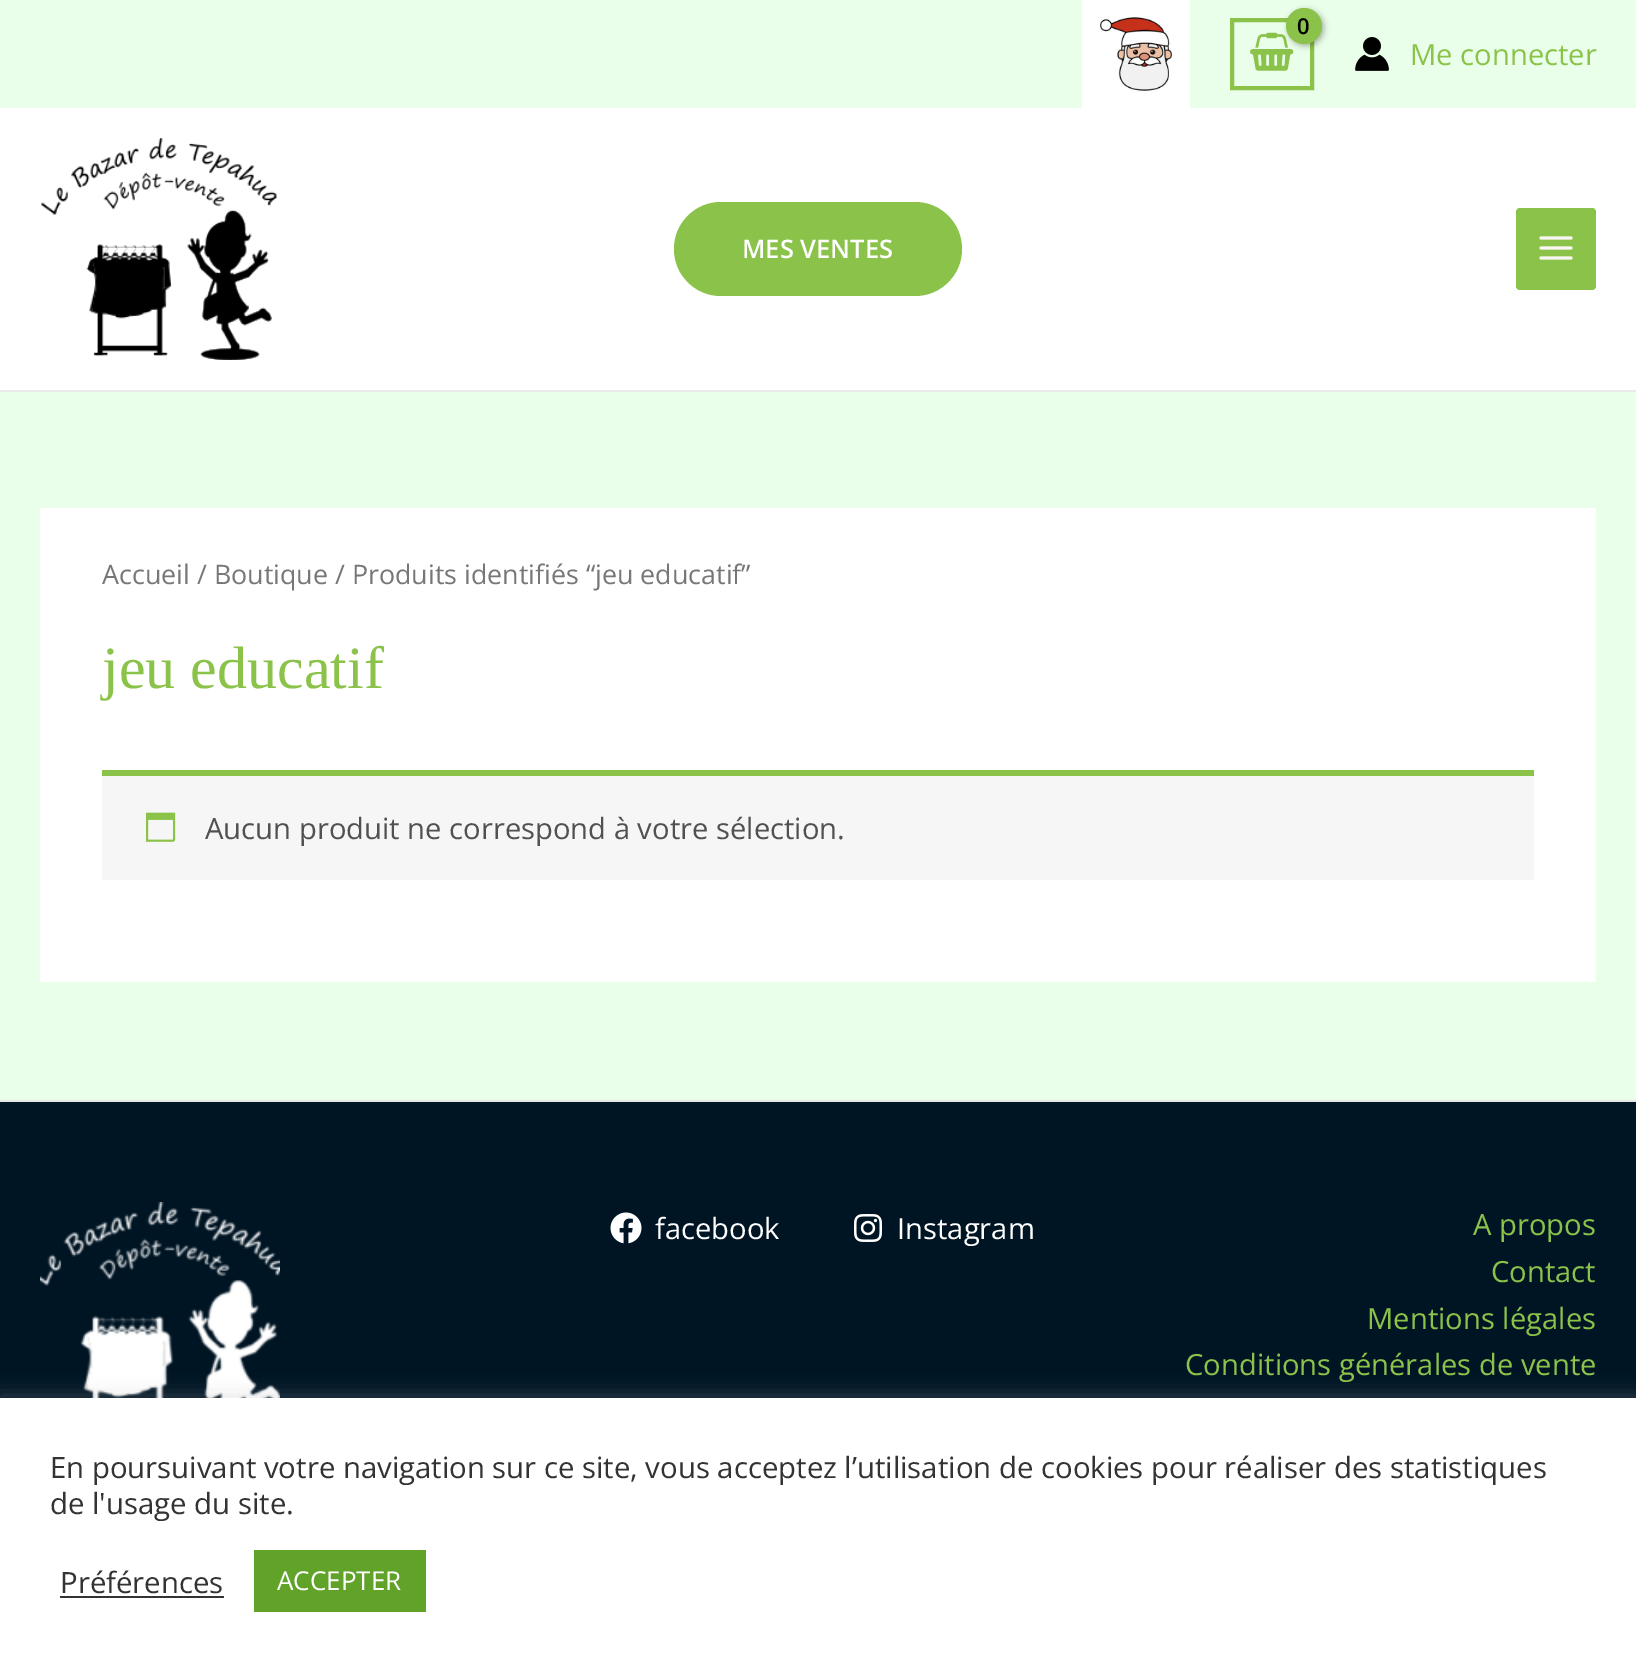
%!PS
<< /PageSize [1636 1672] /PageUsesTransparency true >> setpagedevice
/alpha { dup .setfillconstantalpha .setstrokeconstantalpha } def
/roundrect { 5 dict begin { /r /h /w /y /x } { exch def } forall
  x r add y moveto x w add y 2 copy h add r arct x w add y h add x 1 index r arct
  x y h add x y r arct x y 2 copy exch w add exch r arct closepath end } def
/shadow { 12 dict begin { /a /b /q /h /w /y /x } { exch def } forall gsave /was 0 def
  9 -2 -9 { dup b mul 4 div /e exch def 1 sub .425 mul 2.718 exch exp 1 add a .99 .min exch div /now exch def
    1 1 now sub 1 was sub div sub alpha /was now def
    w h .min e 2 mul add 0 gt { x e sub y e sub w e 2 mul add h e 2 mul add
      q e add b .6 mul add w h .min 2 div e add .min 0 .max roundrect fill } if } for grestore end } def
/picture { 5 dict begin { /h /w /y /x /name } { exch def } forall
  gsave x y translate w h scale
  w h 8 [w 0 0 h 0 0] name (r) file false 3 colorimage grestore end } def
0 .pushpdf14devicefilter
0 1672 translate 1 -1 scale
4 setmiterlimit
0.914 1 0.914 setrgbcolor
0 0 1636 1672 rectfill
(img1.rgb) 1082 0 108 108 picture
0.545 0.765 0.29 setrgbcolor
4 setlinewidth
1232 20 80 68 rectstroke
(img2.rgb) 1250 32 44 39 picture
0 setgray
1288 10 36 36 18 3 0.3 shadow
0.545 0.765 0.29 setrgbcolor
newpath 1304 26 18 0 360 arc closepath fill
/OpenSans-SemiBold [22 0 0 -22 0 0] selectfont
0 setgray
1297 34 moveto -1 0 (0) ashow
(img3.rgb) 1355 37 34 34 picture
/OpenSans-Regular [29.2 0 0 -29.2 0 0] selectfont
0.545 0.765 0.29 setrgbcolor
1410 65 moveto (Me connecter) show
1 setgray
0 108 1636 282 rectfill
0.918 setgray
0 390 1636 2 rectfill
(img4.rgb) 41 138 237 222 picture
0.545 0.765 0.29 setrgbcolor
674 202 288 94 47 roundrect fill
/OpenSans-SemiBold [25.5 0 0 -25.5 0 0] selectfont
1 setgray
742 258 moveto (MES VENTES) show
0.545 0.765 0.29 setrgbcolor
1516 208 80 82 4 roundrect fill
(img5.rgb) 1539 236 34 24 picture
1 setgray
40 508 1556 474 rectfill
/OpenSans-Regular [26.85 0 0 -26.85 0 0] selectfont
0.467 setgray
102 584 moveto (Accueil / Boutique / Produits identifiés “jeu educatif”) show
/LiberationSerif-Regular [60 0 0 -60 0 0] selectfont
0.545 0.765 0.29 setrgbcolor
102 688 moveto (jeu educatif) show
0.969 0.965 0.969 setrgbcolor
102 776 1432 104 rectfill
0.545 0.765 0.29 setrgbcolor
102 770 1432 6 rectfill
(img6.rgb) 146 812 30 30 picture
/OpenSans-Regular [29.2 0 0 -29.2 0 0] selectfont
0.318 setgray
205 839 moveto (Aucun produit ne correspond à votre sélection.) show
0 0.082 0.141 setrgbcolor
0 1102 1636 296 rectfill
0.902 setgray
0 1100 1636 2 rectfill
(img7.rgb) 40 1202 240 196 picture
(img8.rgb) 610 1212 32 32 picture
1 setgray
655 1239 moveto (facebook) show
(img9.rgb) 854 1214 28 28 picture
897 1239 moveto (Instagram) show
0.545 0.765 0.29 setrgbcolor
1473 1235 moveto (A propos) show
1491 1282 moveto (Contact) show
1367 1329 moveto (Mentions légales) show
1185 1375 moveto (Conditions générales de vente) show
0.675 0.671 0.671 setrgbcolor
0 1396 1636 274 0 10 0.3 shadow
1 setgray
0 1398 1636 274 rectfill
/OpenSans-Regular [29.33 0 0 -29.33 0 0] selectfont
0.2 setgray
50 1478 moveto (En poursuivant votre navigation sur ce site, vous acceptez l’utilisation de cookies pour réaliser des statistiques) show
50 1514 moveto (de l'usage du site.) show
60 1593 moveto (Préférences) show
60 1596 164 2 rectfill
0.38 0.635 0.161 setrgbcolor
254 1550 172 62 rectfill
/OpenSans-Regular [26 0 0 -26 0 0] selectfont
1 setgray
277 1590 moveto (ACCEPTER) show
.poppdf14devicefilter showpage
